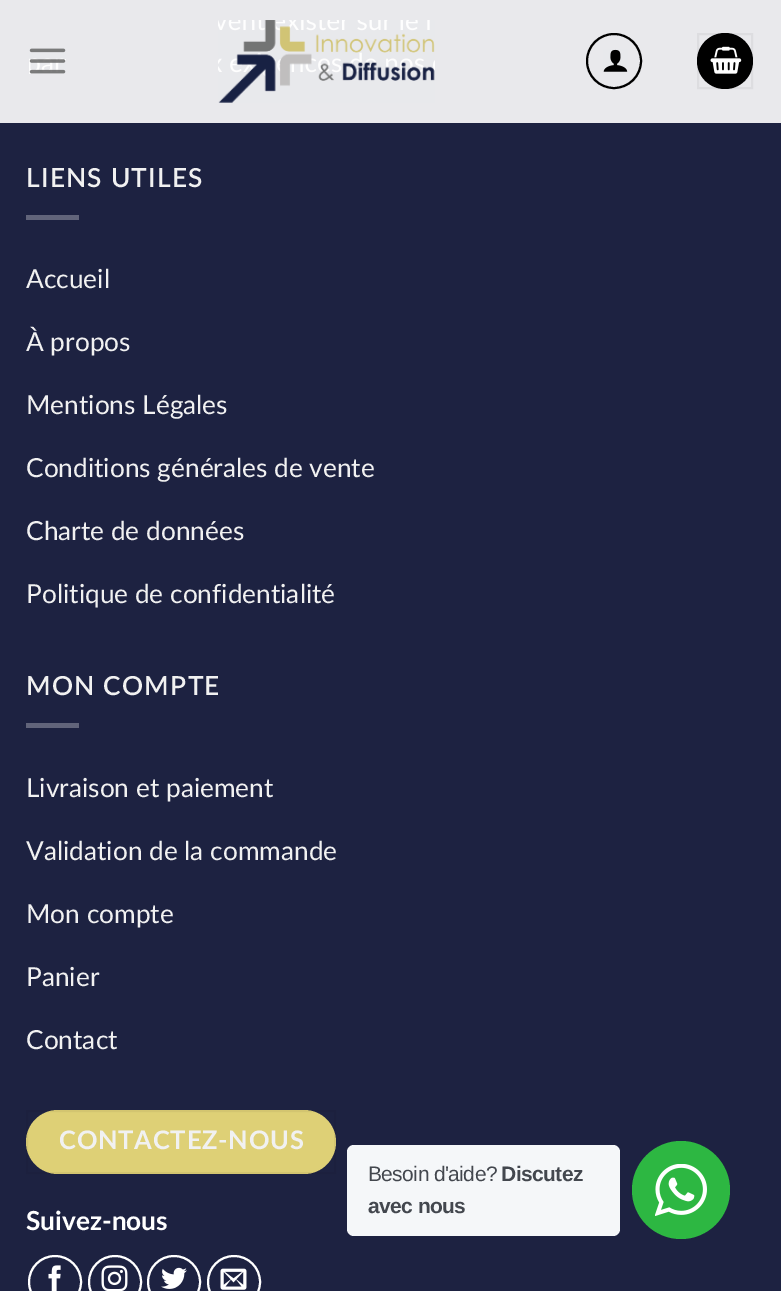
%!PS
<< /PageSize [781 1291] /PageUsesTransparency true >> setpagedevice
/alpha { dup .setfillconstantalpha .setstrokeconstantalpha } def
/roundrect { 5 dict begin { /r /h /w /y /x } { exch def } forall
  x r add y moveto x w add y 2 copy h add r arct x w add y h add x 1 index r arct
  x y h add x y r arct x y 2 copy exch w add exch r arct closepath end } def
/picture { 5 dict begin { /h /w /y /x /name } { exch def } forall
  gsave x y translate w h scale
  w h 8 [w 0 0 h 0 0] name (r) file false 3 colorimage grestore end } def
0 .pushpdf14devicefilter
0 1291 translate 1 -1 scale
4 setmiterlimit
0.114 0.133 0.255 setrgbcolor
0 0 781 1291 rectfill
0.9 alpha
1 setgray
0 0 781 123 rectfill
1 alpha
(img1.rgb) 29 48 37 26 picture
(img2.rgb) 218 20 217 83 picture
0 setgray
2 setlinewidth
newpath 614 61 27 0 360 arc closepath stroke
(img3.rgb) 603 49 25 23 picture
newpath 725 61 28 0 360 arc closepath fill
0.05 alpha
698 34 54 54 rectstroke
1 alpha
(img4.rgb) 710 46 32 28 picture
/Lato-SemiBold [26.25 0 0 -26.25 0 0] selectfont
0.945 setgray
26 187 moveto 1.25 0 (LIENS UTILES) ashow
0.38 0.392 0.478 setrgbcolor
26 215 53 5 rectfill
/Lato-Regular [26.25 0 0 -26.25 0 0] selectfont
0.945 setgray
26 288 moveto (Accueil) show
26 351 moveto (À propos) show
26 414 moveto (Mentions Légales) show
26 477 moveto (Conditions générales de vente) show
26 540 moveto (Charte de données) show
26 603 moveto (Politique de confidentialité) show
/Lato-SemiBold [26.25 0 0 -26.25 0 0] selectfont
26 695 moveto 1.25 0 (MON COMPTE) ashow
0.38 0.392 0.478 setrgbcolor
26 723 53 5 rectfill
/Lato-Regular [26.25 0 0 -26.25 0 0] selectfont
0.945 setgray
26 797 moveto (Livraison et paiement) show
26 860 moveto (Validation de la commande) show
26 923 moveto (Mon compte) show
26 986 moveto (Panier) show
26 1049 moveto (Contact) show
0.871 0.816 0.463 setrgbcolor
26 1110 310 64 32 roundrect fill
0.05 alpha
0 setgray
27 1111 308 62 rectstroke
/Lato-Bold [25.5 0 0 -25.5 0 0] selectfont
1 alpha
0.945 setgray
59 1149 moveto 0.75 0 (CONTACTEZ-NOUS) ashow
/Lato-Bold [26.25 0 0 -26.25 0 0] selectfont
1 setgray
26 1230 moveto (Suivez-nous) show
newpath 55 1282 26 0 360 arc closepath stroke
(img5.rgb) 48 1265 13 26 picture
newpath 115 1282 26 0 360 arc closepath stroke
(img6.rgb) 101 1265 27 26 picture
newpath 174 1282 26 0 360 arc closepath stroke
(img7.rgb) 161 1267 26 22 picture
newpath 234 1282 26 0 360 arc closepath stroke
(img8.rgb) 220 1268 27 22 picture
0.961 0.969 0.976 setrgbcolor
347 1145 273 91 7 roundrect fill
/LiberationSans-Regular [21 0 0 -21 0 0] selectfont
0.263 0.278 0.306 setrgbcolor
368 1181 moveto -0.6 0 (Besoin d'aide?) ashow
/LiberationSans-Bold [21 0 0 -21 0 0] selectfont
501 1181 moveto -0.6 0 (Discutez) ashow
368 1213 moveto -0.6 0 (avec nous) ashow
0.176 0.718 0.259 setrgbcolor
newpath 681 1190 49 0 360 arc closepath fill
(img9.rgb) 655 1164 52 52 picture
.poppdf14devicefilter showpage
